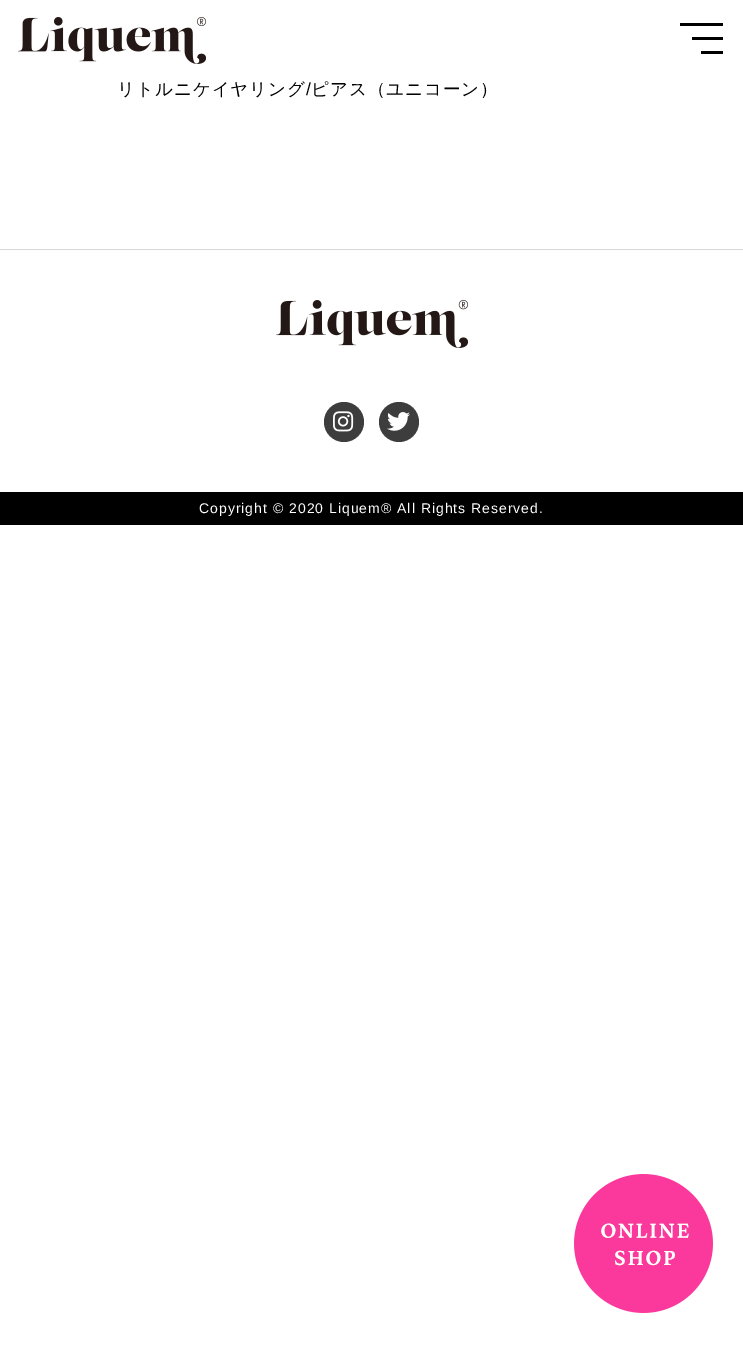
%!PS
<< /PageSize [743 1356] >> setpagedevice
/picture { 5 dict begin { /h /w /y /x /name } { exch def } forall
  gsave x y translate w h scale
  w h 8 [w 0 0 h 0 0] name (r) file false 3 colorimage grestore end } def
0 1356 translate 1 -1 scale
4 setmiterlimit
1 setgray
0 0 743 1356 rectfill
(img1.rgb) 18 17 189 47 picture
0 setgray
680 23 43 3 rectfill
692 37 31 3 rectfill
701 51 22 3 rectfill
/WenQuanYiZenHei-Medium [17.5 0 0 -17.5 0 0] selectfont
117 95 moveto 1 0 (リトルニケイヤリング) ashow
/LiberationSans-Regular [17.5 0 0 -17.5 0 0] selectfont
306 95 moveto 1 0 (/) ashow
/WenQuanYiZenHei-Medium [17.5 0 0 -17.5 0 0] selectfont
311 95 moveto 1 0 (ピアス（ユニコーン）) ashow
0.847 setgray
0 249 743 1 rectfill
(img2.rgb) 276 300 193 48 picture
0.239 setgray
newpath 344 422 20 0 360 arc closepath fill
(img3.rgb) 333 411 21 21 picture
newpath 399 422 20 0 360 arc closepath fill
(img4.rgb) 387 412 23 19 picture
0 setgray
0 492 743 33 rectfill
/LiberationSans-Regular [14 0 0 -14 0 0] selectfont
1 setgray
199 513 moveto 1 0 (Copyright © 2020 Liquem® All Rights Reserved.) ashow
(img5.rgb) 574 1174 139 139 picture
showpage
